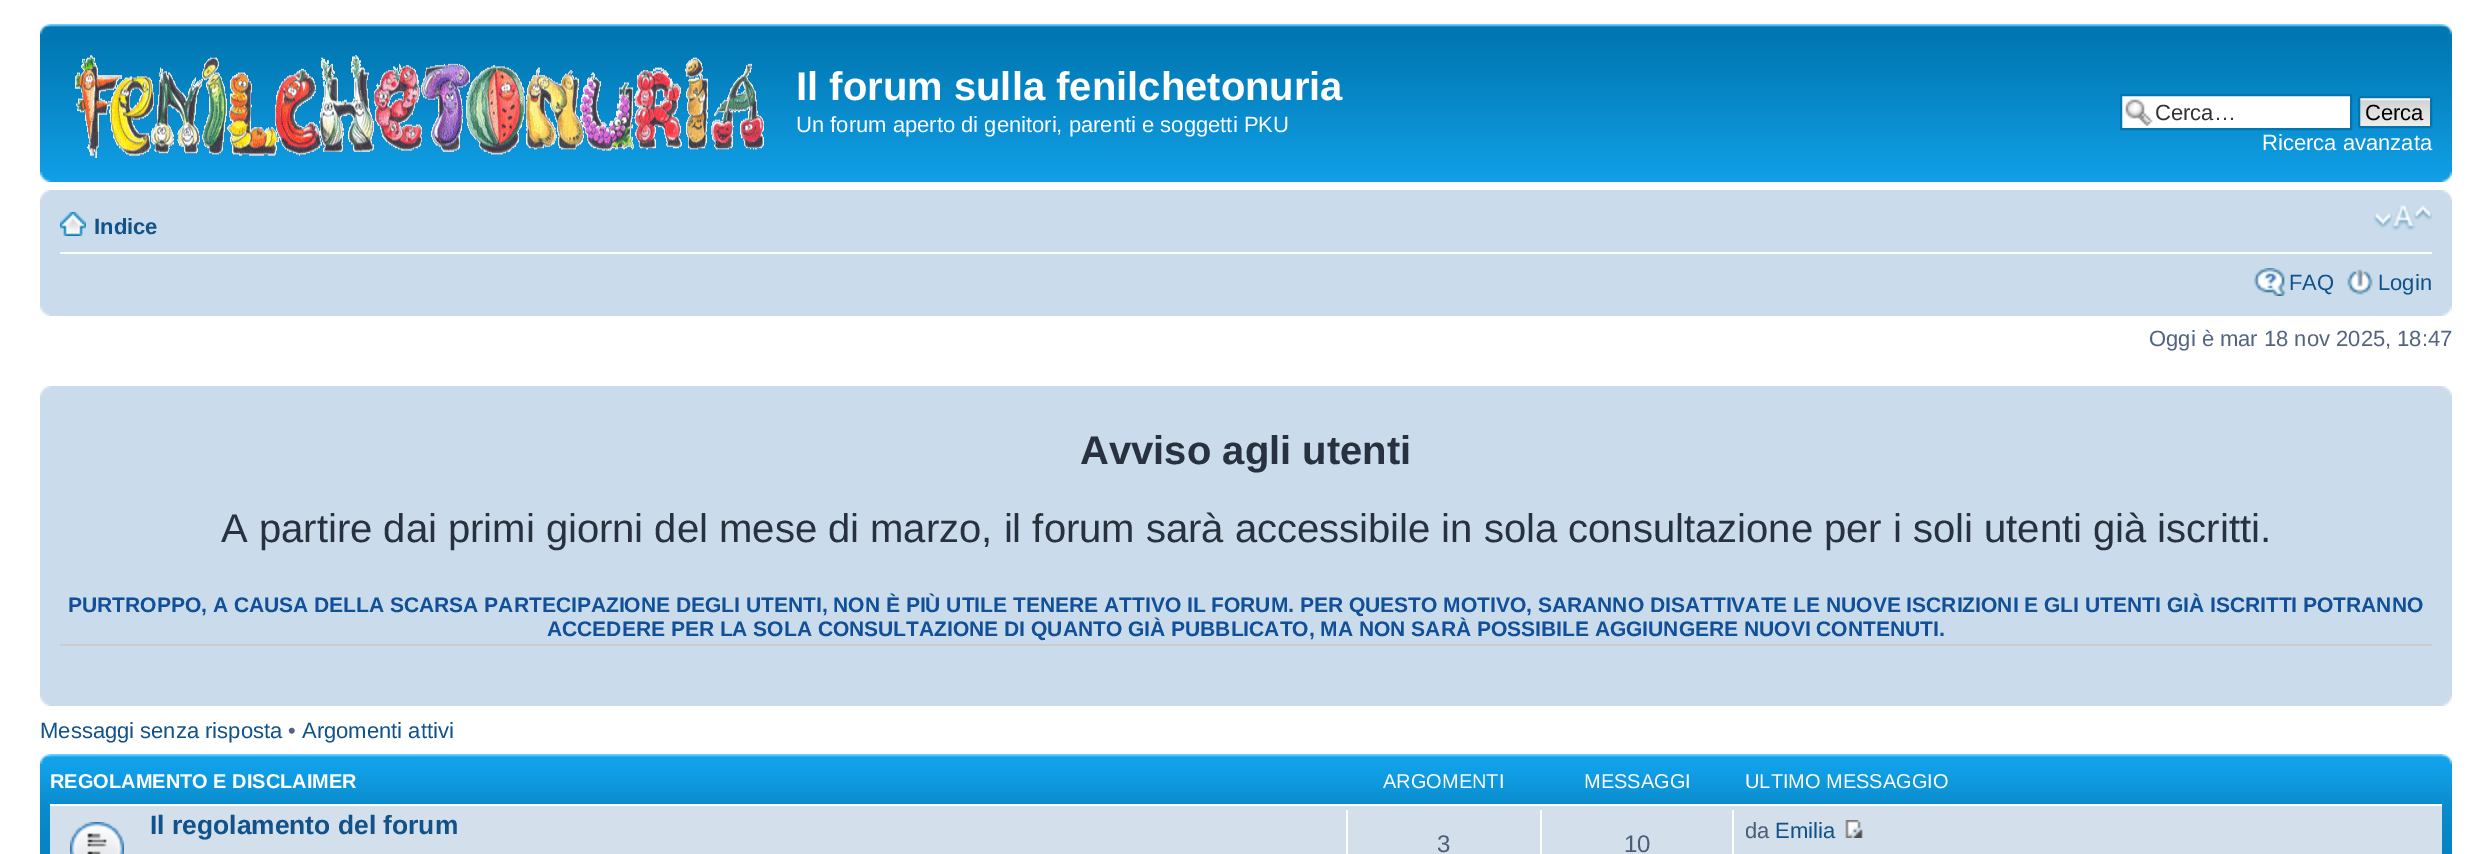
%!PS
<< /PageSize [2491 854] >> setpagedevice
/picture { 5 dict begin { /h /w /y /x /name } { exch def } forall
  gsave x y translate w h scale
  w h 8 [w 0 0 h 0 0] name (r) file false 3 colorimage grestore end } def
0 854 translate 1 -1 scale
4 setmiterlimit
1 setgray
0 0 2491 854 rectfill
(img1.rgb) 40 24 2412 158 picture
(img2.rgb) 40 24 11 10 picture
(img3.rgb) 2441 24 11 10 picture
(img4.rgb) 75 55 689 103 picture
/LiberationSans-Bold [40 0 0 -40 0 0] selectfont
796 100 moveto (Il forum sulla fenilchetonuria) show
/LiberationSans-Regular [22 0 0 -22 0 0] selectfont
796 132 moveto (Un forum aperto di genitori, parenti e soggetti PKU) show
2122 96 228 32 rectfill
(img5.rgb) 2125 99 28 27 picture
0 0.459 0.69 setrgbcolor
2 setlinewidth
2121 95 230 34 rectstroke
0.2 setgray
2155 120 moveto (Cerca…) show
(img6.rgb) 2360 98 70 28 picture
0 0.459 0.69 setrgbcolor
2359 97 72 30 rectstroke
0 setgray
2365 120 moveto (Cerca) show
1 setgray
2262 150 moveto (Ricerca avanzata) show
(img7.rgb) 40 172 11 10 picture
(img8.rgb) 2441 172 11 10 picture
0.792 0.863 0.922 setrgbcolor
40 190 2412 126 rectfill
(img9.rgb) 40 190 11 10 picture
(img10.rgb) 2441 190 11 10 picture
1 setgray
60 252 2372 2 rectfill
(img11.rgb) 60 212 26 24 picture
/LiberationSans-Bold [22 0 0 -22 0 0] selectfont
0.063 0.322 0.537 setrgbcolor
94 234 moveto (Indice) show
(img12.rgb) 2374 205 58 26 picture
(img13.rgb) 2254 268 32 28 picture
/LiberationSans-Regular [22 0 0 -22 0 0] selectfont
2289 290 moveto (FAQ) show
(img14.rgb) 2347 269 26 26 picture
2378 290 moveto (Login) show
(img15.rgb) 40 306 10 10 picture
(img16.rgb) 2442 306 10 10 picture
0.325 0.392 0.51 setrgbcolor
2149 346 moveto (Oggi è mar 18 nov 2025, 18:47) show
0.792 0.863 0.922 setrgbcolor
40 386 2412 320 rectfill
(img9.rgb) 40 386 11 10 picture
(img10.rgb) 2441 386 11 10 picture
/LiberationSans-Bold [40 0 0 -40 0 0] selectfont
0.157 0.192 0.247 setrgbcolor
1080 464 moveto (Avviso agli utenti) show
/LiberationSans-Regular [40 0 0 -40 0 0] selectfont
221 542 moveto (A partire dai primi giorni del mese di marzo, il forum sarà accessibile in sola consultazione per i soli utenti già iscritti.) show
0.8 setgray
60 644 2372 2 rectfill
/LiberationSans-Bold [21 0 0 -21 0 0] selectfont
0.067 0.314 0.596 setrgbcolor
68 612 moveto (PURTROPPO, A CAUSA DELLA SCARSA PARTECIPAZIONE DEGLI UTENTI, NON È PIÙ UTILE TENERE ATTIVO IL FORUM. PER QUESTO MOTIVO, SARANNO DISATTIVATE LE NUOVE ISCRIZIONI E GLI UTENTI GIÀ ISCRITTI POTRANNO) show
547 636 moveto (ACCEDERE PER LA SOLA CONSULTAZIONE DI QUANTO GIÀ PUBBLICATO, MA NON SARÀ POSSIBILE AGGIUNGERE NUOVI CONTENUTI.) show
(img15.rgb) 40 696 10 10 picture
(img16.rgb) 2442 696 10 10 picture
/LiberationSans-Regular [22 0 0 -22 0 0] selectfont
0.063 0.322 0.537 setrgbcolor
40 738 moveto (Messaggi senza risposta) show
0.325 0.392 0.51 setrgbcolor
288 738 moveto (•) show
0.063 0.322 0.537 setrgbcolor
302 738 moveto (Argomenti attivi) show
(img17.rgb) 40 754 2412 100 picture
(img18.rgb) 40 754 11 10 picture
(img19.rgb) 2441 754 11 10 picture
/LiberationSans-Bold [20 0 0 -20 0 0] selectfont
1 setgray
50 788 moveto (REGOLAMENTO E DISCLAIMER) show
/LiberationSans-Regular [20 0 0 -20 0 0] selectfont
1383 788 moveto (ARGOMENTI) show
1584 788 moveto (MESSAGGI) show
1745 788 moveto (ULTIMO MESSAGGIO) show
0.827 0.878 0.922 setrgbcolor
50 806 2392 48 rectfill
1 setgray
50 804 2392 2 rectfill
(img20.rgb) 70 822 54 32 picture
/LiberationSans-Bold [26.4 0 0 -26.4 0 0] selectfont
0.063 0.322 0.537 setrgbcolor
150 834 moveto (Il regolamento del forum) show
1 setgray
1732 810 2 44 rectfill
/LiberationSans-Regular [22 0 0 -22 0 0] selectfont
0.298 0.365 0.467 setrgbcolor
1745 838 moveto (da) show
0.063 0.322 0.537 setrgbcolor
1775 838 moveto (Emilia) show
(img21.rgb) 1845 820 18 18 picture
1 setgray
1346 810 2 44 rectfill
/LiberationSans-Regular [24 0 0 -24 0 0] selectfont
0.298 0.365 0.467 setrgbcolor
1437 852 moveto (3) show
1 setgray
1540 810 2 44 rectfill
0.298 0.365 0.467 setrgbcolor
1624 852 moveto (10) show
showpage
